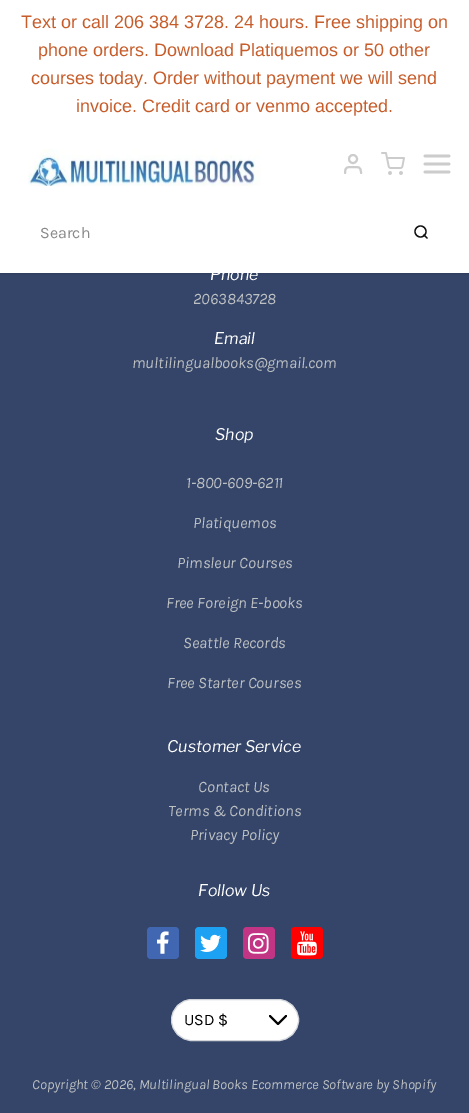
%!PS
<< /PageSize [469 1113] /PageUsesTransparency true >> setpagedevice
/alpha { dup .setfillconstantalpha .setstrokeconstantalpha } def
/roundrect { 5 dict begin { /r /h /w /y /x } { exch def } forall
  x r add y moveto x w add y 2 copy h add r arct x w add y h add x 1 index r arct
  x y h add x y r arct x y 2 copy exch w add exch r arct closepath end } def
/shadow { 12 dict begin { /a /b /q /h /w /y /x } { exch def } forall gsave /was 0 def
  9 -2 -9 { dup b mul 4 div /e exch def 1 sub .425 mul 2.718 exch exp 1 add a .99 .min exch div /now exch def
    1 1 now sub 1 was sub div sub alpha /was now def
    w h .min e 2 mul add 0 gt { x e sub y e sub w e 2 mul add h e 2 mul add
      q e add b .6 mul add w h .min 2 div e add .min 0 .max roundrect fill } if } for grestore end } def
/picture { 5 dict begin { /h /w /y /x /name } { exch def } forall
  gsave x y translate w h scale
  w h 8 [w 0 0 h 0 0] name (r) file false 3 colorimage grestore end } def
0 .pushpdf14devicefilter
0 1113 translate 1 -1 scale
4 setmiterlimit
0.204 0.271 0.412 setrgbcolor
0 0 469 1113 rectfill
0 setgray
0 129 469 145 0 1 0.06 shadow
0 129 469 145 0 1.5 0.1 shadow
1 setgray
0 0 469 273 rectfill
/LiberationSans-Regular [18 0 0 -18 0 0] selectfont
0.78 0.365 0.169 setrgbcolor
21 28 moveto (Text or call 206 384 3728. 24 hours. Free shipping on) show
38 56 moveto (phone orders. Download Platiquemos or 50 other) show
31 84 moveto (courses today. Order without payment we will send) show
76 112 moveto (invoice. Credit card or venmo accepted.) show
(img1.rgb) 28 149 233 37 picture
0.8 setgray
2 setlinewidth
1 setlinecap
1 setlinejoin
newpath 361 173 moveto 361 166.5 358.5 167 353 167 curveto 347.5 167 345 166.5 345 173 curveto stroke
0 setlinecap
0 setlinejoin
newpath 353 159 4 0 360 arc closepath stroke
(img2.rgb) 381 152 24 23 picture
2.7 setlinewidth
1 setlinecap
1 setlinejoin
newpath 425 164 moveto 449 164 lineto 425 156 moveto 449 156 lineto 425 172 moveto 449 172 lineto stroke
/Karla-Regular [16 0 0 -16 0 0] selectfont
0.537 setgray
40 238 moveto (Search) show
0.071 setgray
1.3 setlinewidth
0 setlinecap
0 setlinejoin
newpath 420.5 231.5 5.5 0 360 arc closepath stroke
1 setlinecap
1 setlinejoin
newpath 427 238 moveto 424 235 lineto stroke
/LibreFranklin-Italic [16 0 0 -16 0 0] selectfont
1 setgray
210 280 moveto (Phone) show
/Karla-Italic [16 0 0 -16 0 0] selectfont
0.741 0.753 0.761 setrgbcolor
193 304 moveto (2063843728) show
/LibreFranklin-Italic [16 0 0 -16 0 0] selectfont
1 setgray
214 344 moveto (Email) show
/Karla-Italic [16 0 0 -16 0 0] selectfont
0.741 0.753 0.761 setrgbcolor
132 368 moveto (multilingualbooks@gmail.com) show
/LibreFranklin-Italic [16 0 0 -16 0 0] selectfont
1 setgray
215 440 moveto (Shop) show
/Karla-Italic [16 0 0 -16 0 0] selectfont
0.741 0.753 0.761 setrgbcolor
186 488 moveto (1-800-609-6211) show
193 528 moveto (Platiquemos) show
177 568 moveto (Pimsleur Courses) show
166 608 moveto (Free Foreign E-books) show
183 648 moveto (Seattle Records) show
167 688 moveto (Free Starter Courses) show
/LibreFranklin-Italic [16 0 0 -16 0 0] selectfont
1 setgray
167 752 moveto (Customer Service) show
/Karla-Italic [16 0 0 -16 0 0] selectfont
0.741 0.753 0.761 setrgbcolor
198 792 moveto (Contact Us) show
168 816 moveto (Terms & Conditions) show
190 840 moveto (Privacy Policy) show
/LibreFranklin-Italic [16 0 0 -16 0 0] selectfont
1 setgray
198 896 moveto (Follow Us) show
0.259 0.404 0.698 setrgbcolor
147 927 32 32 4 roundrect fill
(img3.rgb) 157 931 12 23 picture
0.114 0.631 0.949 setrgbcolor
195 927 32 32 4 roundrect fill
(img4.rgb) 200 934 21 18 picture
0.757 0.208 0.518 setrgbcolor
243 927 32 32 4 roundrect fill
(img5.rgb) 248 933 21 21 picture
1 0 0 setrgbcolor
291 927 32 32 4 roundrect fill
(img6.rgb) 297 931 20 25 picture
1 setgray
171.5 999.5 127 41 20.5 roundrect gsave fill grestore
0.82 0.835 0.859 setrgbcolor
1 setlinewidth
0 setlinecap
0 setlinejoin
stroke
/Karla-Regular [16 0 0 -16 0 0] selectfont
0 setgray
184 1025 moveto (USD $) show
2 setlinewidth
1 setlinecap
1 setlinejoin
newpath 286 1016 moveto 278 1024 lineto 270 1016 lineto stroke
/Karla-Italic [14 0 0 -14 0 0] selectfont
0.741 0.753 0.761 setrgbcolor
32 1089 moveto (Copyright © 2026, Multilingual Books Ecommerce Software by Shopify) show
.poppdf14devicefilter showpage
